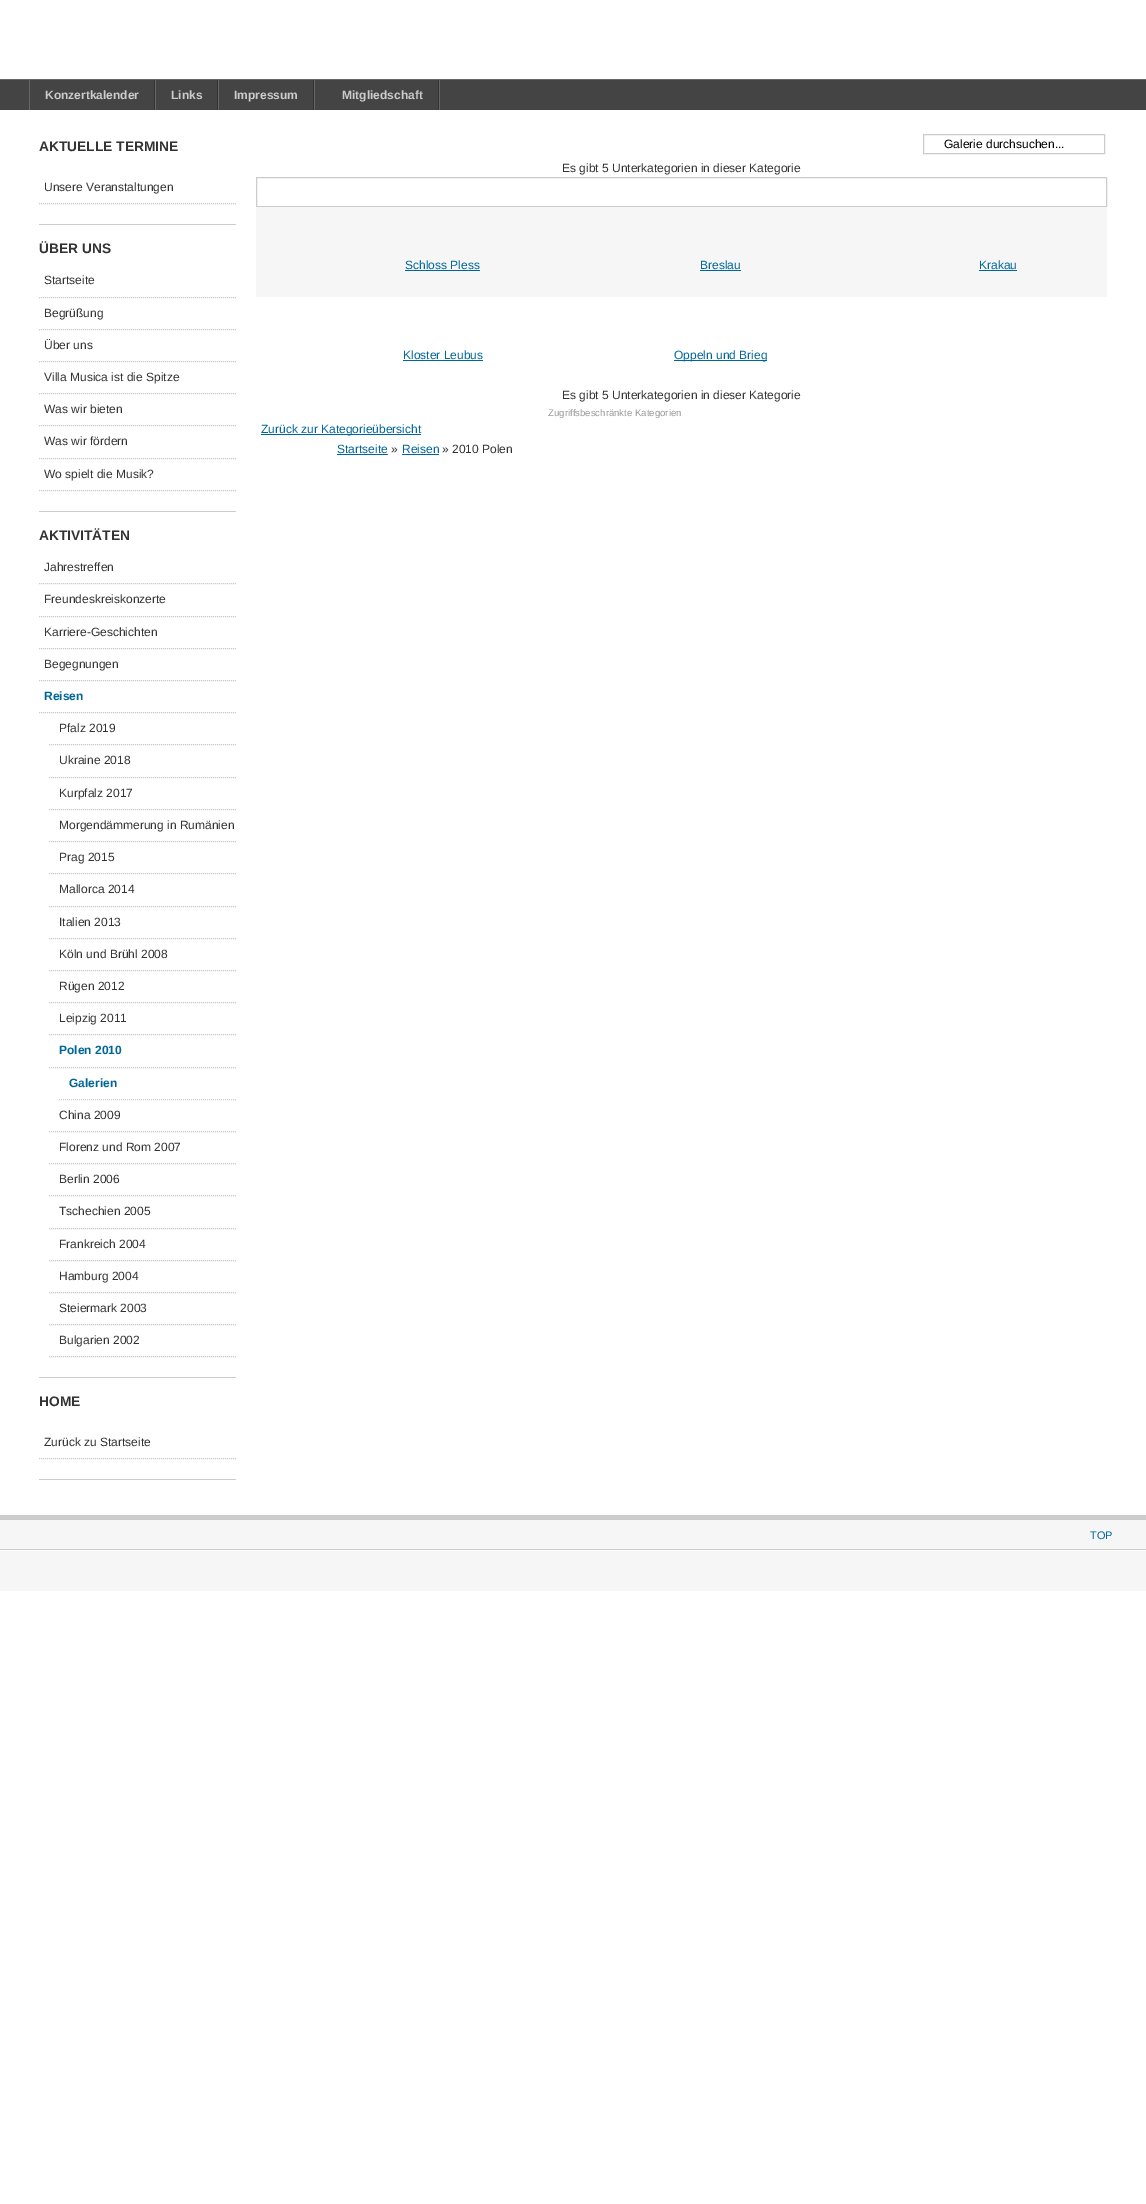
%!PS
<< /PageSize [1146 2204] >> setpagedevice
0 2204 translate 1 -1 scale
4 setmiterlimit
1 setgray
0 0 1146 2204 rectfill
0.267 setgray
0 80 1146 30 rectfill
0.4 setgray
0 79 1146 1 rectfill
439 80 1 30 rectfill
0.2 setgray
154 80 1 30 rectfill
0.4 setgray
29 80 1 30 rectfill
/LiberationSans-Bold [12 0 0 -12 0 0] selectfont
0.8 setgray
45 99 moveto (Konzertkalender) show
0.2 setgray
217 80 1 30 rectfill
0.4 setgray
155 80 1 30 rectfill
0.8 setgray
171 99 moveto (Links) show
0.2 setgray
313 80 1 30 rectfill
0.4 setgray
218 80 1 30 rectfill
0.8 setgray
234 99 moveto (Impressum) show
0.2 setgray
438 80 1 30 rectfill
0.4 setgray
314 80 1 30 rectfill
0.8 setgray
342 99 moveto (Mitgliedschaft) show
0 1515 1146 5 rectfill
39 224 197 1 rectfill
/LiberationSans-Bold [13.75 0 0 -13.75 0 0] selectfont
0.2 setgray
39 151 moveto (AKTUELLE TERMINE) show
0.8 setgray
[1 1] 0 setdash
newpath 39 203.5 moveto 236 203.5 lineto stroke
/LiberationSans-Regular [12 0 0 -12 0 0] selectfont
0.2 setgray
44 191 moveto (Unsere Veranstaltungen) show
0.8 setgray
39 511 197 1 rectfill
/LiberationSans-Bold [13.75 0 0 -13.75 0 0] selectfont
0.2 setgray
39 253 moveto (ÜBER UNS) show
0.8 setgray
newpath 39 297.5 moveto 236 297.5 lineto stroke
/LiberationSans-Regular [12 0 0 -12 0 0] selectfont
0.2 setgray
44 284 moveto (Startseite) show
0.8 setgray
newpath 39 329.5 moveto 236 329.5 lineto stroke
0.2 setgray
44 317 moveto (Begrüßung) show
0.8 setgray
newpath 39 361.5 moveto 236 361.5 lineto stroke
0.2 setgray
44 349 moveto (Über uns) show
0.8 setgray
newpath 39 393.5 moveto 236 393.5 lineto stroke
0.2 setgray
44 381 moveto (Villa Musica ist die Spitze) show
0.8 setgray
newpath 39 425.5 moveto 236 425.5 lineto stroke
0.2 setgray
44 413 moveto (Was wir bieten) show
0.8 setgray
newpath 39 458.5 moveto 236 458.5 lineto stroke
0.2 setgray
44 445 moveto (Was wir fördern) show
0.8 setgray
newpath 39 490.5 moveto 236 490.5 lineto stroke
0.2 setgray
44 478 moveto (Wo spielt die Musik?) show
0.8 setgray
39 1377 197 1 rectfill
/LiberationSans-Bold [13.75 0 0 -13.75 0 0] selectfont
0.2 setgray
39 540 moveto (AKTIVITÄTEN) show
0.8 setgray
newpath 39 583.5 moveto 236 583.5 lineto stroke
/LiberationSans-Regular [12 0 0 -12 0 0] selectfont
0.2 setgray
44 571 moveto (Jahrestreffen) show
0.8 setgray
newpath 39 616.5 moveto 236 616.5 lineto stroke
0.2 setgray
44 603 moveto (Freundeskreiskonzerte) show
0.8 setgray
newpath 39 648.5 moveto 236 648.5 lineto stroke
0.2 setgray
44 636 moveto (Karriere-Geschichten) show
0.8 setgray
newpath 39 680.5 moveto 236 680.5 lineto stroke
0.2 setgray
44 668 moveto (Begegnungen) show
0.8 setgray
newpath 39 712.5 moveto 236 712.5 lineto stroke
/LiberationSans-Bold [12 0 0 -12 0 0] selectfont
0 0.4 0.6 setrgbcolor
44 700 moveto (Reisen) show
0.8 setgray
newpath 49 744.5 moveto 236 744.5 lineto stroke
/LiberationSans-Regular [12 0 0 -12 0 0] selectfont
0.2 setgray
59 732 moveto (Pfalz 2019) show
0.8 setgray
newpath 49 777.5 moveto 236 777.5 lineto stroke
0.2 setgray
59 764 moveto (Ukraine 2018) show
0.8 setgray
newpath 49 809.5 moveto 236 809.5 lineto stroke
0.2 setgray
59 797 moveto (Kurpfalz 2017) show
0.8 setgray
newpath 49 841.5 moveto 236 841.5 lineto stroke
0.2 setgray
59 829 moveto (Morgendämmerung in Rumänien) show
0.8 setgray
newpath 49 873.5 moveto 236 873.5 lineto stroke
0.2 setgray
59 861 moveto (Prag 2015) show
0.8 setgray
newpath 49 906.5 moveto 236 906.5 lineto stroke
0.2 setgray
59 893 moveto (Mallorca 2014) show
0.8 setgray
newpath 49 938.5 moveto 236 938.5 lineto stroke
0.2 setgray
59 926 moveto (Italien 2013) show
0.8 setgray
newpath 49 970.5 moveto 236 970.5 lineto stroke
0.2 setgray
59 958 moveto (Köln und Brühl 2008) show
0.8 setgray
newpath 49 1002.5 moveto 236 1002.5 lineto stroke
0.2 setgray
59 990 moveto (Rügen 2012) show
0.8 setgray
newpath 49 1034.5 moveto 236 1034.5 lineto stroke
0.2 setgray
59 1022 moveto (Leipzig 2011) show
0.8 setgray
newpath 49 1067.5 moveto 236 1067.5 lineto stroke
/LiberationSans-Bold [12 0 0 -12 0 0] selectfont
0 0.4 0.6 setrgbcolor
59 1054 moveto (Polen 2010) show
0.8 setgray
newpath 59 1099.5 moveto 236 1099.5 lineto stroke
0 0.4 0.6 setrgbcolor
69 1087 moveto (Galerien) show
0.8 setgray
newpath 49 1131.5 moveto 236 1131.5 lineto stroke
/LiberationSans-Regular [12 0 0 -12 0 0] selectfont
0.2 setgray
59 1119 moveto (China 2009) show
0.8 setgray
newpath 49 1163.5 moveto 236 1163.5 lineto stroke
0.2 setgray
59 1151 moveto (Florenz und Rom 2007) show
0.8 setgray
newpath 49 1195.5 moveto 236 1195.5 lineto stroke
0.2 setgray
59 1183 moveto (Berlin 2006) show
0.8 setgray
newpath 49 1228.5 moveto 236 1228.5 lineto stroke
0.2 setgray
59 1215 moveto (Tschechien 2005) show
0.8 setgray
newpath 49 1260.5 moveto 236 1260.5 lineto stroke
0.2 setgray
59 1248 moveto (Frankreich 2004) show
0.8 setgray
newpath 49 1292.5 moveto 236 1292.5 lineto stroke
0.2 setgray
59 1280 moveto (Hamburg 2004) show
0.8 setgray
newpath 49 1324.5 moveto 236 1324.5 lineto stroke
0.2 setgray
59 1312 moveto (Steiermark 2003) show
0.8 setgray
newpath 49 1356.5 moveto 236 1356.5 lineto stroke
0.2 setgray
59 1344 moveto (Bulgarien 2002) show
0.8 setgray
39 1479 197 1 rectfill
/LiberationSans-Bold [13.75 0 0 -13.75 0 0] selectfont
0.2 setgray
39 1406 moveto (HOME) show
0.8 setgray
newpath 39 1458.5 moveto 236 1458.5 lineto stroke
/LiberationSans-Regular [12 0 0 -12 0 0] selectfont
0.2 setgray
44 1446 moveto (Zurück zu Startseite) show
0.8 setgray
[] 0 setdash
923.5 134.5 181 19 rectstroke
0 setgray
944 148 moveto (Galerie durchsuchen...) show
0.2 setgray
562 172 moveto (Es gibt 5 Unterkategorien in dieser Kategorie) show
0.8 setgray
256.5 177.5 850 29 rectstroke
0.965 setgray
256 207 851 90 rectfill
0 0.4 0.6 setrgbcolor
405 269 moveto (Schloss Pless) show
405 270 75 1 rectfill
700 269 moveto (Breslau) show
700 270 41 1 rectfill
979 269 moveto (Krakau) show
979 270 38 1 rectfill
403 359 moveto (Kloster Leubus) show
403 360 80 1 rectfill
674 360 93 1 rectfill
674 359 moveto (Oppeln und Brieg) show
0.2 setgray
562 399 moveto (Es gibt 5 Unterkategorien in dieser Kategorie) show
/LiberationSans-Regular [9.6 0 0 -9.6 0 0] selectfont
0.6 setgray
548 416 moveto (Zugriffsbeschränkte Kategorien) show
0 0.4 0.6 setrgbcolor
261 434 160 1 rectfill
/LiberationSans-Regular [12 0 0 -12 0 0] selectfont
261 433 moveto (Zurück zur Kategorieübersicht) show
337 453 moveto (Startseite) show
337 454 51 1 rectfill
0.2 setgray
391 453 moveto (») show
0 0.4 0.6 setrgbcolor
402 453 moveto (Reisen) show
402 454 37 1 rectfill
0.2 setgray
442 453 moveto (» 2010 Polen) show
0.965 setgray
0 1520 1146 29 rectfill
0.8 setgray
0 1549 1146 1 rectfill
/LiberationSans-Regular [11 0 0 -11 0 0] selectfont
0 0.4 0.6 setrgbcolor
1090 1539 moveto (TOP) show
0.965 setgray
0 1551 1146 40 rectfill
showpage
